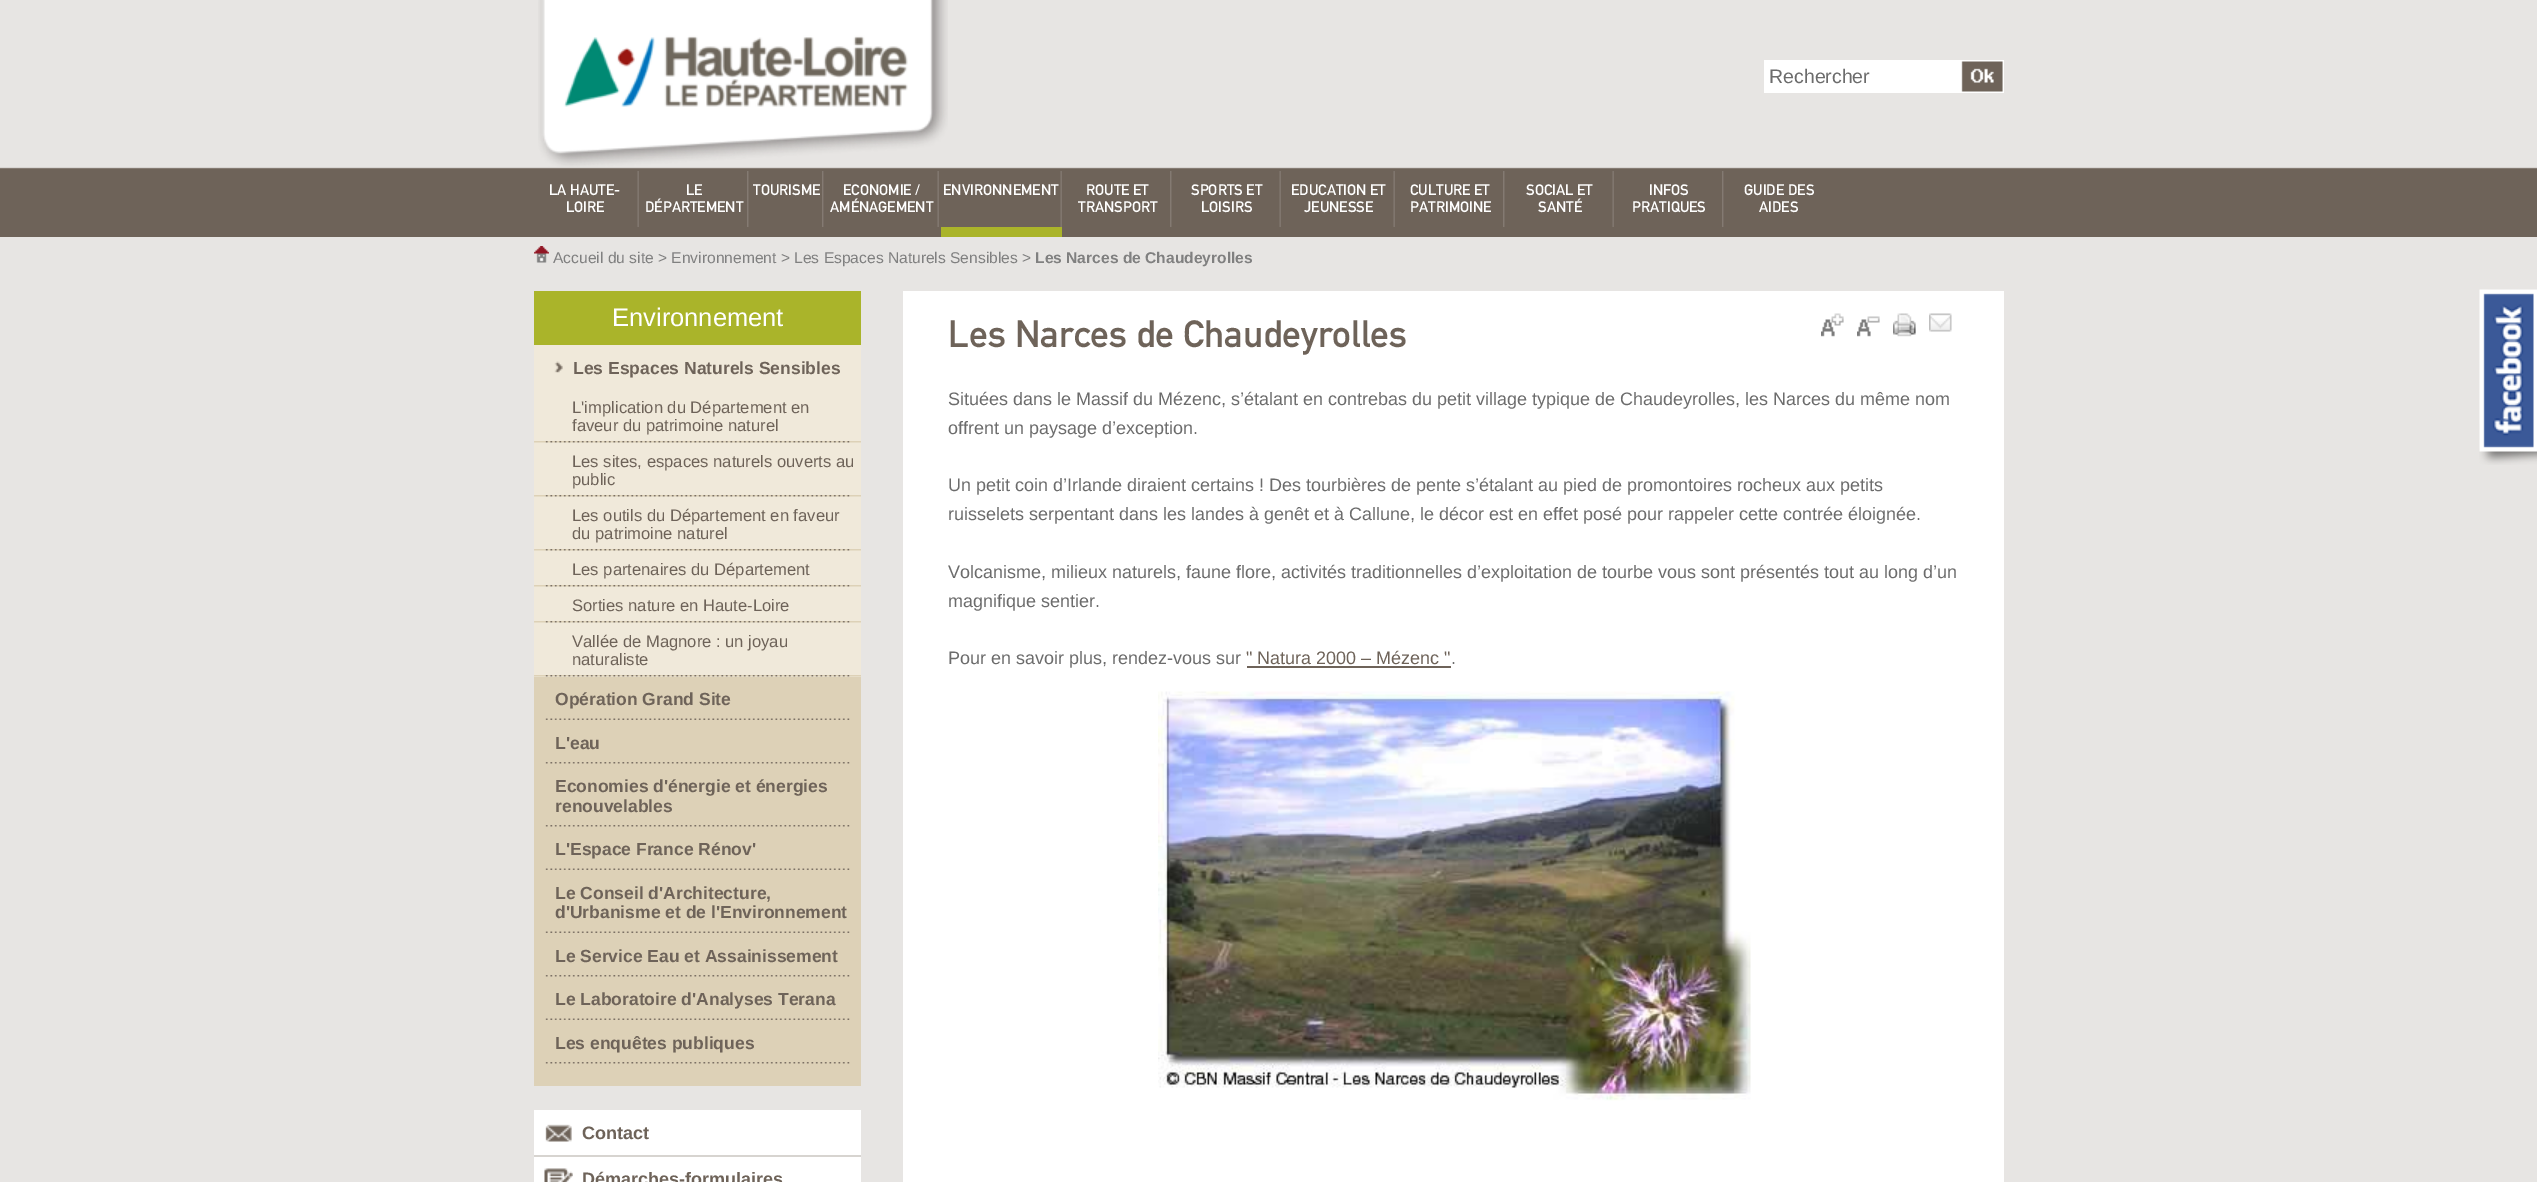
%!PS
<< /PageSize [2537 1182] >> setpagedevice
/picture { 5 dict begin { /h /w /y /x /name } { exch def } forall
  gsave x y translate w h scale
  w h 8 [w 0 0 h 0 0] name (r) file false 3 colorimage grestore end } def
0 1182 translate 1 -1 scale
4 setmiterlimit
0.906 0.898 0.89 setrgbcolor
0 0 2537 1182 rectfill
(img1.rgb) 0 167 2537 70 picture
(img2.rgb) 538 0 410 167 picture
1 setgray
1764 60 197 33 rectfill
/LiberationSans-Regular [19.5 0 0 -19.5 0 0] selectfont
0.424 setgray
1769 83 moveto (Rechercher) show
(img3.rgb) 1961 60 43 33 picture
(img4.rgb) 637 171 2 56 picture
/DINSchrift-Regular [15 0 0 -15 0 0] selectfont
1 setgray
549 195 moveto (LA HAUTE-) show
566 212 moveto (LOIRE) show
(img5.rgb) 747 171 2 56 picture
686 195 moveto (LE) show
645 212 moveto (DÉPARTEMENT) show
(img6.rgb) 822 171 2 56 picture
753 195 moveto (TOURISME) show
(img4.rgb) 937 171 2 56 picture
843 195 moveto (ECONOMIE /) show
830 212 moveto (AMÉNAGEMENT) show
(img4.rgb) 1060 171 2 56 picture
0.667 0.706 0.165 setrgbcolor
941 227 121 10 rectfill
1 setgray
943 195 moveto (ENVIRONNEMENT) show
(img5.rgb) 1170 171 2 56 picture
1086 195 moveto (ROUTE ET) show
1078 212 moveto (TRANSPORT) show
(img4.rgb) 1279 171 2 56 picture
1191 195 moveto (SPORTS ET) show
1201 212 moveto (LOISIRS) show
(img4.rgb) 1393 171 2 56 picture
1291 195 moveto (EDUCATION ET) show
1304 212 moveto (JEUNESSE) show
(img5.rgb) 1503 171 2 56 picture
1410 195 moveto (CULTURE ET) show
1410 212 moveto (PATRIMOINE) show
(img4.rgb) 1612 171 2 56 picture
1526 195 moveto (SOCIAL ET) show
1538 212 moveto (SANTÉ) show
(img6.rgb) 1722 171 2 56 picture
1649 195 moveto (INFOS) show
1632 212 moveto (PRATIQUES) show
1744 195 moveto (GUIDE DES) show
1759 212 moveto (AIDES) show
(img7.rgb) 534 246 15 17 picture
/LiberationSans-Regular [15.6 0 0 -15.6 0 0] selectfont
0.502 setgray
553 263 moveto (Accueil du site > Environnement > Les Espaces Naturels Sensibles >) show
/LiberationSans-Bold [15.6 0 0 -15.6 0 0] selectfont
1035 263 moveto (Les Narces de Chaudeyrolles) show
0.667 0.706 0.165 setrgbcolor
534 291 327 54 rectfill
/LiberationSans-Regular [25.5 0 0 -25.5 0 0] selectfont
1 setgray
612 326 moveto (Environnement) show
0.867 0.82 0.718 setrgbcolor
534 677 327 409 rectfill
0.941 0.914 0.855 setrgbcolor
534 345 327 332 rectfill
(img8.rgb) 554 361 9 12 picture
/LiberationSans-Bold [17.5 0 0 -17.5 0 0] selectfont
0.431 0.388 0.349 setrgbcolor
573 374 moveto (Les Espaces Naturels Sensibles) show
(img9.rgb) 534 441 327 2 picture
/LiberationSans-Regular [16.6 0 0 -16.6 0 0] selectfont
572 413 moveto (L'implication du Département en) show
572 431 moveto (faveur du patrimoine naturel) show
(img9.rgb) 534 495 327 2 picture
572 467 moveto (Les sites, espaces naturels ouverts au) show
572 485 moveto (public) show
(img9.rgb) 534 549 327 2 picture
572 521 moveto (Les outils du Département en faveur) show
572 539 moveto (du patrimoine naturel) show
(img9.rgb) 534 585 327 2 picture
572 575 moveto (Les partenaires du Département) show
(img9.rgb) 534 621 327 2 picture
572 611 moveto (Sorties nature en Haute-Loire) show
(img9.rgb) 534 675 327 2 picture
572 647 moveto (Vallée de Magnore : un joyau) show
572 665 moveto (naturaliste) show
(img10.rgb) 545 718 305 2 picture
/LiberationSans-Bold [17.5 0 0 -17.5 0 0] selectfont
555 705 moveto (Opération Grand Site) show
(img11.rgb) 545 762 305 2 picture
555 749 moveto (L'eau) show
(img11.rgb) 545 825 305 2 picture
555 792 moveto (Economies d'énergie et énergies) show
555 812 moveto (renouvelables) show
(img10.rgb) 545 868 305 2 picture
555 855 moveto (L'Espace France Rénov') show
(img10.rgb) 545 931 305 2 picture
555 899 moveto (Le Conseil d'Architecture,) show
555 918 moveto (d'Urbanisme et de l'Environnement) show
(img11.rgb) 545 975 305 2 picture
555 962 moveto (Le Service Eau et Assainissement) show
(img10.rgb) 545 1018 305 2 picture
555 1005 moveto (Le Laboratoire d'Analyses Terana) show
(img11.rgb) 545 1062 305 2 picture
555 1049 moveto (Les enquêtes publiques) show
1 setgray
534 1110 327 72 rectfill
(img12.rgb) 545 1124 27 18 picture
0.843 0.831 0.816 setrgbcolor
534 1155 327 2 rectfill
/LiberationSans-Bold [18 0 0 -18 0 0] selectfont
0.431 0.388 0.349 setrgbcolor
582 1139 moveto (Contact) show
(img13.rgb) 544 1168 29 14 picture
582 1185 moveto (Démarches-formulaires) show
1 setgray
903 291 1101 891 rectfill
/DINSchrift-Regular [37.5 0 0 -37.5 0 0] selectfont
0.431 0.388 0.349 setrgbcolor
948 347 moveto (Les Narces de Chaudeyrolles) show
(img14.rgb) 1821 313 23 24 picture
(img15.rgb) 1857 316 23 21 picture
(img16.rgb) 1893 313 23 24 picture
(img17.rgb) 1929 313 23 19 picture
/LiberationSans-Regular [18 0 0 -18 0 0] selectfont
0.424 setgray
948 405 moveto (Situées dans le Massif du Mézenc, s’étalant en contrebas du petit village typique de Chaudeyrolles, les Narces du même nom) show
948 434 moveto (offrent un paysage d’exception.) show
948 491 moveto (Un petit coin d’Irlande diraient certains ! Des tourbières de pente s’étalant au pied de promontoires rocheux aux petits) show
948 520 moveto (ruisselets serpentant dans les landes à genêt et à Callune, le décor est en effet posé pour rappeler cette contrée éloignée.) show
948 578 moveto (Volcanisme, milieux naturels, faune flore, activités traditionnelles d’exploitation de tourbe vous sont présentés tout au long d’un) show
948 607 moveto (magnifique sentier.) show
948 664 moveto (Pour en savoir plus, rendez-vous sur) show
0.431 0.388 0.349 setrgbcolor
1246 664 moveto (" Natura 2000 – Mézenc ") show
1247 666 204 2 rectfill
0.424 setgray
1451 664 moveto (.) show
(img18.rgb) 1158 691 593 410 picture
(img19.rgb) 2479 289 58 176 picture
showpage
